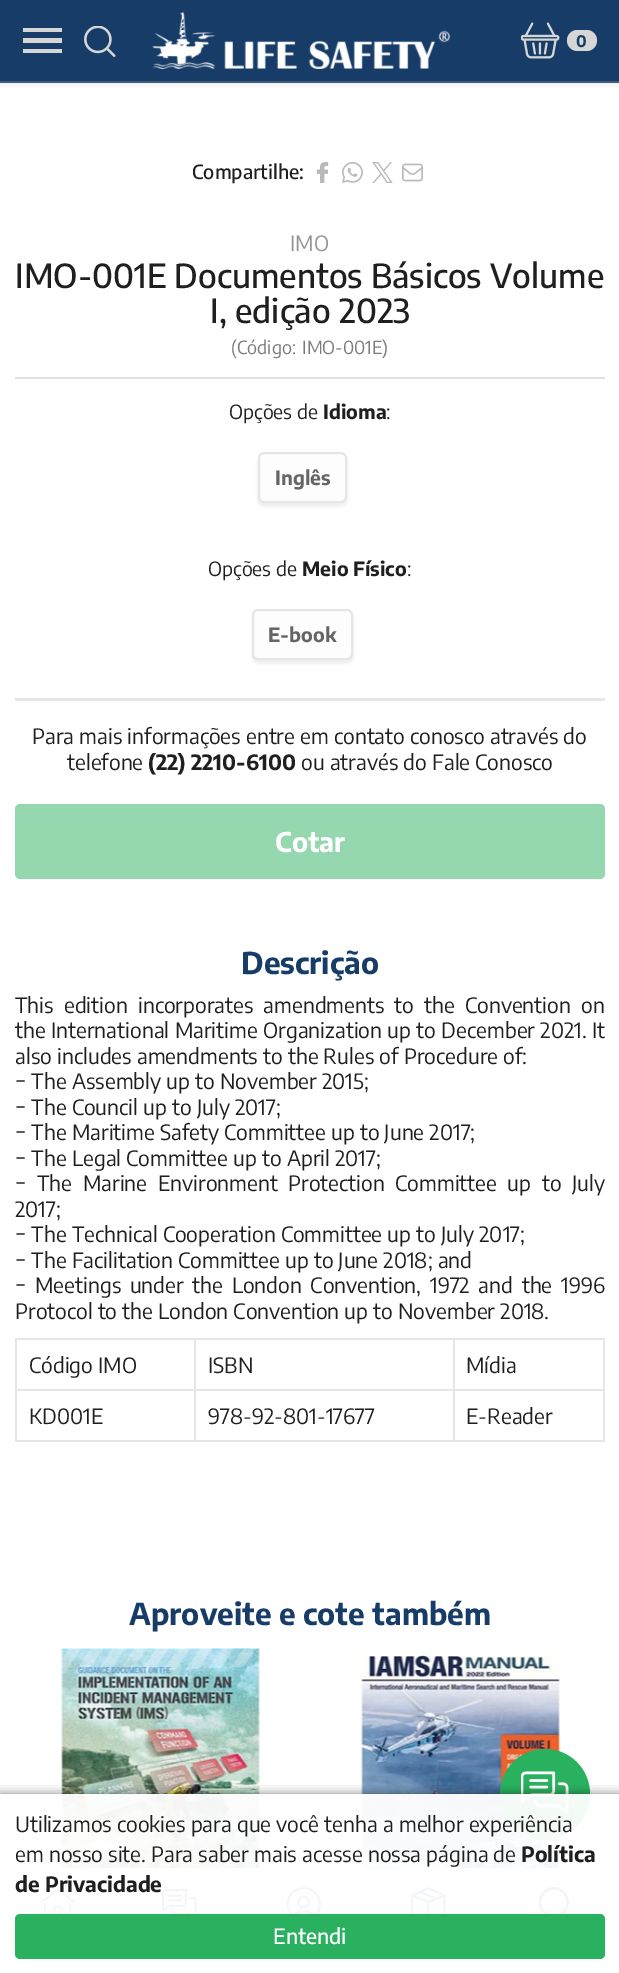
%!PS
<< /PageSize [619 1973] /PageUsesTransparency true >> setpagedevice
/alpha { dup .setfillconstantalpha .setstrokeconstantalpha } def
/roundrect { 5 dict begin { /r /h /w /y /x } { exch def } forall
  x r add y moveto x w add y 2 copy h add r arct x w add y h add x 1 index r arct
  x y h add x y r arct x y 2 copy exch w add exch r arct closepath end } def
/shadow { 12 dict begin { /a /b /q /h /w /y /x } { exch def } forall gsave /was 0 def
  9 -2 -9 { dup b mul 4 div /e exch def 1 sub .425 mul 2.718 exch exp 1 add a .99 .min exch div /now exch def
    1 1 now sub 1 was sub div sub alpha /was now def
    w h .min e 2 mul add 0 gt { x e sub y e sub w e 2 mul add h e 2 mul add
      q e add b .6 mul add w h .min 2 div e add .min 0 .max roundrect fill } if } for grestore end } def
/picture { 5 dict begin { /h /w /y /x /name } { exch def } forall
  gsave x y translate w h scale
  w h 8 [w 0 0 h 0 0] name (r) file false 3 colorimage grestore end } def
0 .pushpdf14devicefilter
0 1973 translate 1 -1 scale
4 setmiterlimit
1 setgray
0 0 619 1973 rectfill
0.322 setgray
0 2 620 82 0 3 0.13 shadow
0.086 0.235 0.404 setrgbcolor
0 0 619 81 rectfill
0.247 0.369 0.506 setrgbcolor
0 81 619 2 rectfill
0.839 setgray
23 49 39 4 rectfill
23 38 39 5 rectfill
23 28 39 4 rectfill
(img1.rgb) 84 26 32 31 picture
(img2.rgb) 152 12 299 57 picture
(img3.rgb) 521 22 39 37 picture
567 30 30 21 10.5 roundrect fill
/EncodeSansCondensed-Bold [16 0 0 -16 0 0] selectfont
0.086 0.235 0.404 setrgbcolor
576 47 moveto (0) show
/EncodeSansCondensed-Medium [19.5 0 0 -19.5 0 0] selectfont
0.125 0.122 0.122 setrgbcolor
192 179 moveto (Compartilhe:) show
(img4.rgb) 316 162 13 21 picture
(img5.rgb) 342 162 21 21 picture
(img6.rgb) 372 162 21 21 picture
(img7.rgb) 402 163 21 19 picture
0.882 setgray
15 377 590 2 rectfill
/EncodeSansCondensed-Regular [21 0 0 -21 0 0] selectfont
0.58 setgray
290 251 moveto (IMO) show
/EncodeSansCondensed-Medium [33 0 0 -33 0 0] selectfont
0.125 0.122 0.122 setrgbcolor
15 288 moveto (IMO-001E Documentos Básicos Volume) show
210 323 moveto (I, edição 2023) show
/EncodeSansCondensed-Regular [18 0 0 -18 0 0] selectfont
0.482 setgray
231 354 moveto (\(Código:) show
302 354 moveto (IMO-001E\)) show
0.902 setgray
15 698 590 3 rectfill
/EncodeSansCondensed-Regular [19.5 0 0 -19.5 0 0] selectfont
0.125 0.122 0.122 setrgbcolor
229 419 moveto (Opções de) show
/EncodeSansCondensed-Bold [19.5 0 0 -19.5 0 0] selectfont
323 419 moveto (Idioma) show
/EncodeSansCondensed-Regular [19.5 0 0 -19.5 0 0] selectfont
386 419 moveto (:) show
0.804 setgray
258 455 89 51 6 1.5 0.35 shadow
0.992 setgray
259 453 87 49 5 roundrect gsave fill grestore
0.902 setgray
2 setlinewidth
stroke
/EncodeSansCondensed-Bold [19.5 0 0 -19.5 0 0] selectfont
0.396 setgray
275 485 moveto (Inglês) show
/EncodeSansCondensed-Regular [19.5 0 0 -19.5 0 0] selectfont
0.125 0.122 0.122 setrgbcolor
208 576 moveto (Opções de) show
/EncodeSansCondensed-Bold [19.5 0 0 -19.5 0 0] selectfont
302 576 moveto (Meio Físico) show
/EncodeSansCondensed-Regular [19.5 0 0 -19.5 0 0] selectfont
407 576 moveto (:) show
0.804 setgray
252 612 101 51 6 1.5 0.35 shadow
0.992 setgray
253 610 99 49 5 roundrect gsave fill grestore
0.902 setgray
stroke
/EncodeSansCondensed-Bold [19.5 0 0 -19.5 0 0] selectfont
0.396 setgray
268 642 moveto (E-book) show
/EncodeSansCondensed-Regular [21 0 0 -21 0 0] selectfont
0.125 0.122 0.122 setrgbcolor
32 744 moveto (Para mais informações entre em contato conosco através do) show
67 770 moveto (telefone) show
/EncodeSansCondensed-Bold [21 0 0 -21 0 0] selectfont
148 770 moveto (\(22\) 2210-6100) show
/EncodeSansCondensed-Regular [21 0 0 -21 0 0] selectfont
301 770 moveto (ou através do Fale Conosco) show
0.584 0.847 0.69 setrgbcolor
15 804 590 75 5 roundrect fill
/EncodeSansCondensed-Bold [27 0 0 -27 0 0] selectfont
1 setgray
275 852 moveto (Cotar) show
/EncodeSansCondensed-Bold [30 0 0 -30 0 0] selectfont
0.086 0.235 0.404 setrgbcolor
241 974 moveto (Descrição) show
/EncodeSansCondensed-Regular [21 0 0 -21 0 0] selectfont
0.125 0.122 0.122 setrgbcolor
15 1013 moveto 5 0 32 (This edition incorporates amendments to the Convention on) widthshow
15 1038 moveto 0.25 0 32 (the International Maritime Organization up to December 2021. It) widthshow
15 1064 moveto (also includes amendments to the Rules of Procedure of:) show
15 1089 moveto (− The Assembly up to November 2015;) show
15 1115 moveto (− The Council up to July 2017;) show
15 1140 moveto (− The Maritime Safety Committee up to June 2017;) show
15 1166 moveto (− The Legal Committee up to April 2017;) show
15 1191 moveto 5.5 0 32 (− The Marine Environment Protection Committee up to July) widthshow
15 1217 moveto (2017;) show
15 1242 moveto (− The Technical Cooperation Committee up to July 2017;) show
15 1268 moveto (− The Facilitation Committee up to June 2018; and) show
15 1293 moveto 3.5 0 32 (− Meetings under the London Convention, 1972 and the 1996) widthshow
15 1319 moveto (Protocol to the London Convention up to November 2018.) show
0.902 setgray
15 1338 590 2 rectfill
15 1389 590 2 rectfill
603 1389 2 53 rectfill
603 1338 2 53 rectfill
15 1440 590 2 rectfill
15 1389 2 53 rectfill
15 1338 2 53 rectfill
0.125 0.122 0.122 setrgbcolor
29 1373 moveto (Código IMO) show
208 1373 moveto (ISBN) show
466 1373 moveto (Mídia) show
29 1424 moveto (KD001E) show
0.902 setgray
194 1338 2 104 rectfill
0.125 0.122 0.122 setrgbcolor
208 1424 moveto (978-92-801-17677) show
0.902 setgray
453 1338 2 104 rectfill
0.125 0.122 0.122 setrgbcolor
466 1424 moveto (E-Reader) show
/EncodeSansCondensed-Bold [30 0 0 -30 0 0] selectfont
0.086 0.235 0.404 setrgbcolor
129 1625 moveto (Aproveite e cote também) show
(img8.rgb) 60 1648 201 220 picture
(img9.rgb) 358 1652 203 216 picture
0.404 setgray
500 1764 90 90 45 6 0.1 shadow
0 setgray
500 1752 90 90 45 1 0.04 shadow
0.165 0.694 0.376 setrgbcolor
newpath 545 1794 45 0 360 arc closepath fill
(img10.rgb) 521 1771 48 43 picture
0.322 setgray
0 1868 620 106 0 3 0.08 shadow
1 setgray
0 1870 619 103 rectfill
0.886 setgray
0 1868 619 2 rectfill
(img11.rgb) 41 1888 34 26 picture
(img12.rgb) 162 1889 35 25 picture
(img13.rgb) 287 1887 34 27 picture
(img14.rgb) 411 1887 35 27 picture
(img15.rgb) 539 1887 30 27 picture
gsave
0 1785 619 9 rectclip
0 setgray
0 1794 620 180 0 5 0.5 shadow
grestore
0.95 alpha
1 setgray
0 1794 619 120 rectfill
/EncodeSansCondensed-Regular [21 0 0 -21 0 0] selectfont
1 alpha
0.125 0.122 0.122 setrgbcolor
15 1832 moveto (Utilizamos cookies para que você tenha a melhor experiência) show
15 1862 moveto (em nosso site. Para saber mais acesse nossa página de) show
/EncodeSansCondensed-Bold [21 0 0 -21 0 0] selectfont
521 1862 moveto (Política) show
15 1892 moveto (de Privacidade) show
0.165 0.694 0.376 setrgbcolor
15 1914 590 45 5 roundrect fill
/EncodeSansCondensed-Medium [21 0 0 -21 0 0] selectfont
1 setgray
273 1944 moveto (Entendi) show
.poppdf14devicefilter showpage
